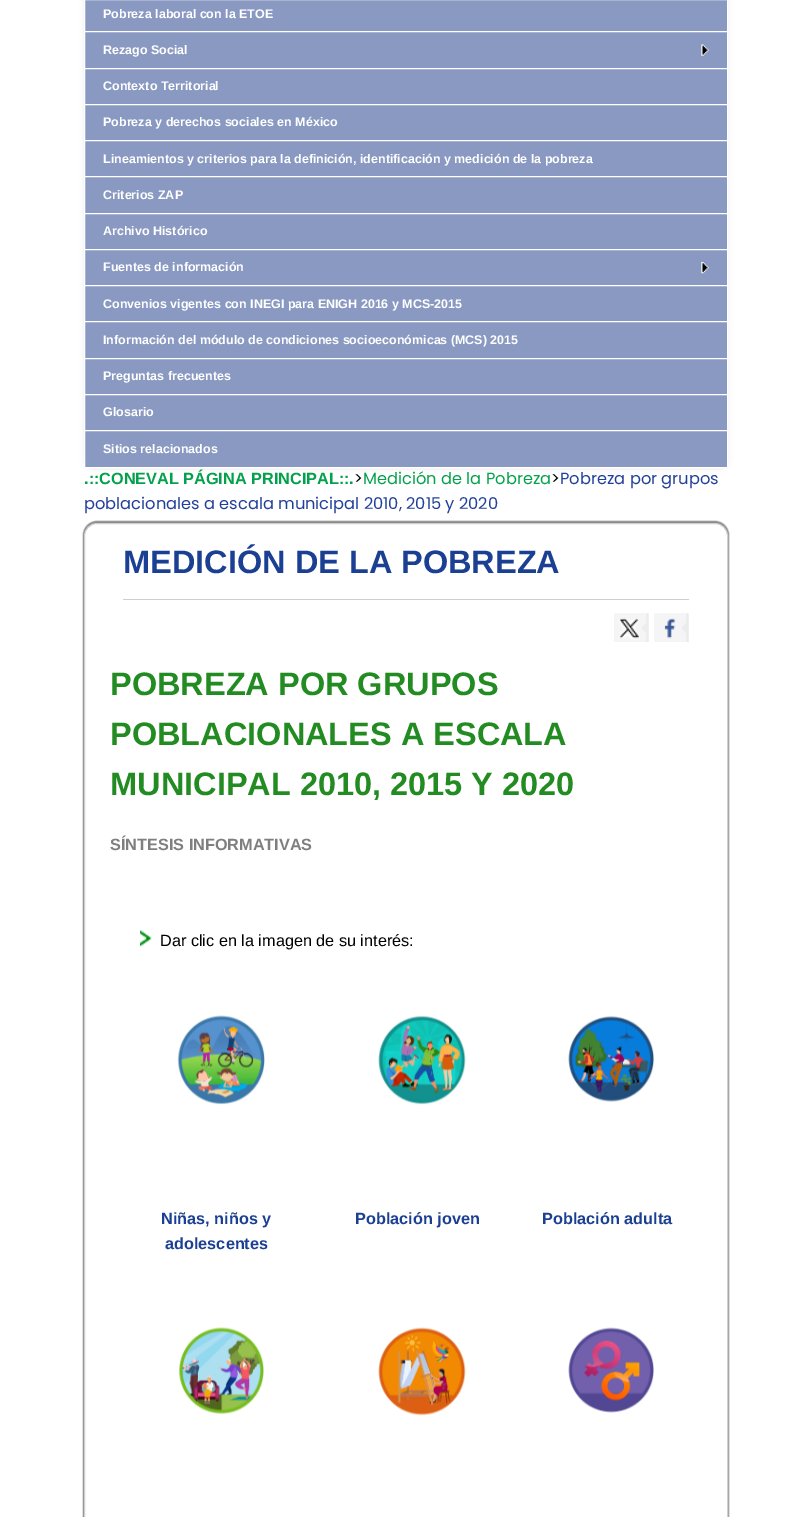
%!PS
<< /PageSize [811 1517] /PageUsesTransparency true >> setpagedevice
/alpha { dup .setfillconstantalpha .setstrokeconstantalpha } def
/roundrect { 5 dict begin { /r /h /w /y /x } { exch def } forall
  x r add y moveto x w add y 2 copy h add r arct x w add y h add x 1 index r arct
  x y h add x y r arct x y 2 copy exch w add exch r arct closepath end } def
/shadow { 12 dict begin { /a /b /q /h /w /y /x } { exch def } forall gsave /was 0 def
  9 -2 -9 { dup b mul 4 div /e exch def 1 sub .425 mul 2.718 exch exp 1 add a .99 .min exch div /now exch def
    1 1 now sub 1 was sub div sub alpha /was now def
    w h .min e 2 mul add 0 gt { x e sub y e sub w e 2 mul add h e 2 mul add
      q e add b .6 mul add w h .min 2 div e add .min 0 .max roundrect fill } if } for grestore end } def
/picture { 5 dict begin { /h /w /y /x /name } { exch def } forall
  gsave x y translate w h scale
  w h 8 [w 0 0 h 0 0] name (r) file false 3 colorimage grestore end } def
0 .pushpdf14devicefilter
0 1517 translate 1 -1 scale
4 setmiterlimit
1 setgray
0 0 811 1517 rectfill
0 setgray
84 -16 644 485 8 2.5 0.07 shadow
0.537 0.6 0.757 setrgbcolor
85 0 642 31 rectfill
1 setgray
84.5 -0.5 643 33 rectstroke
/LiberationSans-Bold [12.5 0 0 -12.5 0 0] selectfont
103 18 moveto (Pobreza laboral con la ETOE) show
0.537 0.6 0.757 setrgbcolor
newpath 84.5 31.5 moveto 727.5 31.5 lineto 727.5 68.5 lineto 84.5 68.5 lineto closepath gsave fill grestore
1 setgray
stroke
(img1.rgb) 701 44 8 12 picture
103 54 moveto (Rezago Social) show
0.537 0.6 0.757 setrgbcolor
newpath 84.5 68.5 moveto 727.5 68.5 lineto 727.5 104.5 lineto 84.5 104.5 lineto closepath gsave fill grestore
1 setgray
stroke
103 90 moveto (Contexto Territorial) show
0.537 0.6 0.757 setrgbcolor
newpath 84.5 104.5 moveto 727.5 104.5 lineto 727.5 140.5 lineto 84.5 140.5 lineto closepath gsave fill grestore
1 setgray
stroke
103 126 moveto (Pobreza y derechos sociales en México) show
0.537 0.6 0.757 setrgbcolor
85 141 642 35 rectfill
1 setgray
84.5 140.5 643 37 rectstroke
103 163 moveto (Lineamientos y criterios para la definición, identificación y medición de la pobreza) show
0.537 0.6 0.757 setrgbcolor
newpath 84.5 176.5 moveto 727.5 176.5 lineto 727.5 213.5 lineto 84.5 213.5 lineto closepath gsave fill grestore
1 setgray
stroke
103 199 moveto (Criterios ZAP) show
0.537 0.6 0.757 setrgbcolor
newpath 84.5 213.5 moveto 727.5 213.5 lineto 727.5 249.5 lineto 84.5 249.5 lineto closepath gsave fill grestore
1 setgray
stroke
103 235 moveto (Archivo Histórico) show
0.537 0.6 0.757 setrgbcolor
newpath 84.5 249.5 moveto 727.5 249.5 lineto 727.5 285.5 lineto 84.5 285.5 lineto closepath gsave fill grestore
1 setgray
stroke
(img2.rgb) 701 262 8 12 picture
103 271 moveto (Fuentes de información) show
0.537 0.6 0.757 setrgbcolor
85 286 642 35 rectfill
1 setgray
84.5 285.5 643 37 rectstroke
103 308 moveto (Convenios vigentes con INEGI para ENIGH 2016 y MCS-2015) show
0.537 0.6 0.757 setrgbcolor
newpath 84.5 321.5 moveto 727.5 321.5 lineto 727.5 358.5 lineto 84.5 358.5 lineto closepath gsave fill grestore
1 setgray
stroke
103 344 moveto (Información del módulo de condiciones socioeconómicas \(MCS\) 2015) show
0.537 0.6 0.757 setrgbcolor
newpath 84.5 358.5 moveto 727.5 358.5 lineto 727.5 394.5 lineto 84.5 394.5 lineto closepath gsave fill grestore
1 setgray
stroke
103 380 moveto (Preguntas frecuentes) show
0.537 0.6 0.757 setrgbcolor
newpath 84.5 394.5 moveto 727.5 394.5 lineto 727.5 430.5 lineto 84.5 430.5 lineto closepath gsave fill grestore
1 setgray
stroke
103 416 moveto (Glosario) show
0.537 0.6 0.757 setrgbcolor
newpath 84.5 430.5 moveto 727.5 430.5 lineto 727.5 467.5 lineto 84.5 467.5 lineto closepath gsave fill grestore
1 setgray
stroke
103 453 moveto (Sitios relacionados) show
/LiberationSans-Bold [16.25 0 0 -16.25 0 0] selectfont
0.016 0.631 0.298 setrgbcolor
84 484 moveto (.::CONEVAL PÁGINA PRINCIPAL::.) show
/Poppins-Regular [16.25 0 0 -16.25 0 0] selectfont
0 setgray
354 484 moveto (>) show
0.016 0.631 0.298 setrgbcolor
363 484 moveto (Medición de la Pobreza) show
0 setgray
551 484 moveto (>) show
0.129 0.251 0.604 setrgbcolor
560 484 moveto (Pobreza por grupos) show
84 509 moveto (poblacionales a escala municipal 2010, 2015 y 2020) show
gsave
newpath 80 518 moveto 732 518 lineto 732 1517 lineto 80 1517 lineto closepath 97 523 moveto 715 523 lineto 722 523 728 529 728 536 curveto 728 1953 lineto 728 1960 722 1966 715 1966 curveto 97 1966 lineto 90 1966 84 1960 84 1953 curveto 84 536 lineto 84 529 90 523 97 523 curveto closepath eoclip newpath
0.533 setgray
83 521 646 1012 14 0.5 1 shadow
grestore
0.816 0.812 0.812 setrgbcolor
84.5 523.5 643 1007 12.5 roundrect stroke
123 599 566 1 rectfill
/LiberationSans-Bold [32.5 0 0 -32.5 0 0] selectfont
0.106 0.251 0.576 setrgbcolor
123 573 moveto (MEDICIÓN DE LA POBREZA) show
(img3.rgb) 614 613 35 29 picture
(img4.rgb) 654 613 35 29 picture
0.133 0.545 0.133 setrgbcolor
110 695 moveto (POBREZA POR GRUPOS) show
110 745 moveto (POBLACIONALES A ESCALA) show
110 795 moveto (MUNICIPAL 2010, 2015 Y 2020) show
/LiberationSans-Bold [16.25 0 0 -16.25 0 0] selectfont
0.498 setgray
110 850 moveto (SÍNTESIS INFORMATIVAS) show
(img5.rgb) 140 930 12 17 picture
/LiberationSans-Regular [16.25 0 0 -16.25 0 0] selectfont
0 setgray
160 946 moveto (Dar clic en la imagen de su interés:) show
(img6.rgb) 177 1015 88 90 picture
(img7.rgb) 378 1016 88 89 picture
(img8.rgb) 568 1016 87 86 picture
/LiberationSans-Bold [16.25 0 0 -16.25 0 0] selectfont
0.106 0.251 0.576 setrgbcolor
161 1224 moveto (Niñas, niños y) show
165 1249 moveto (adolescentes) show
355 1224 moveto (Población joven) show
542 1224 moveto (Población adulta) show
(img9.rgb) 179 1327 85 87 picture
(img10.rgb) 378 1327 88 89 picture
(img11.rgb) 568 1327 86 86 picture
.poppdf14devicefilter showpage
